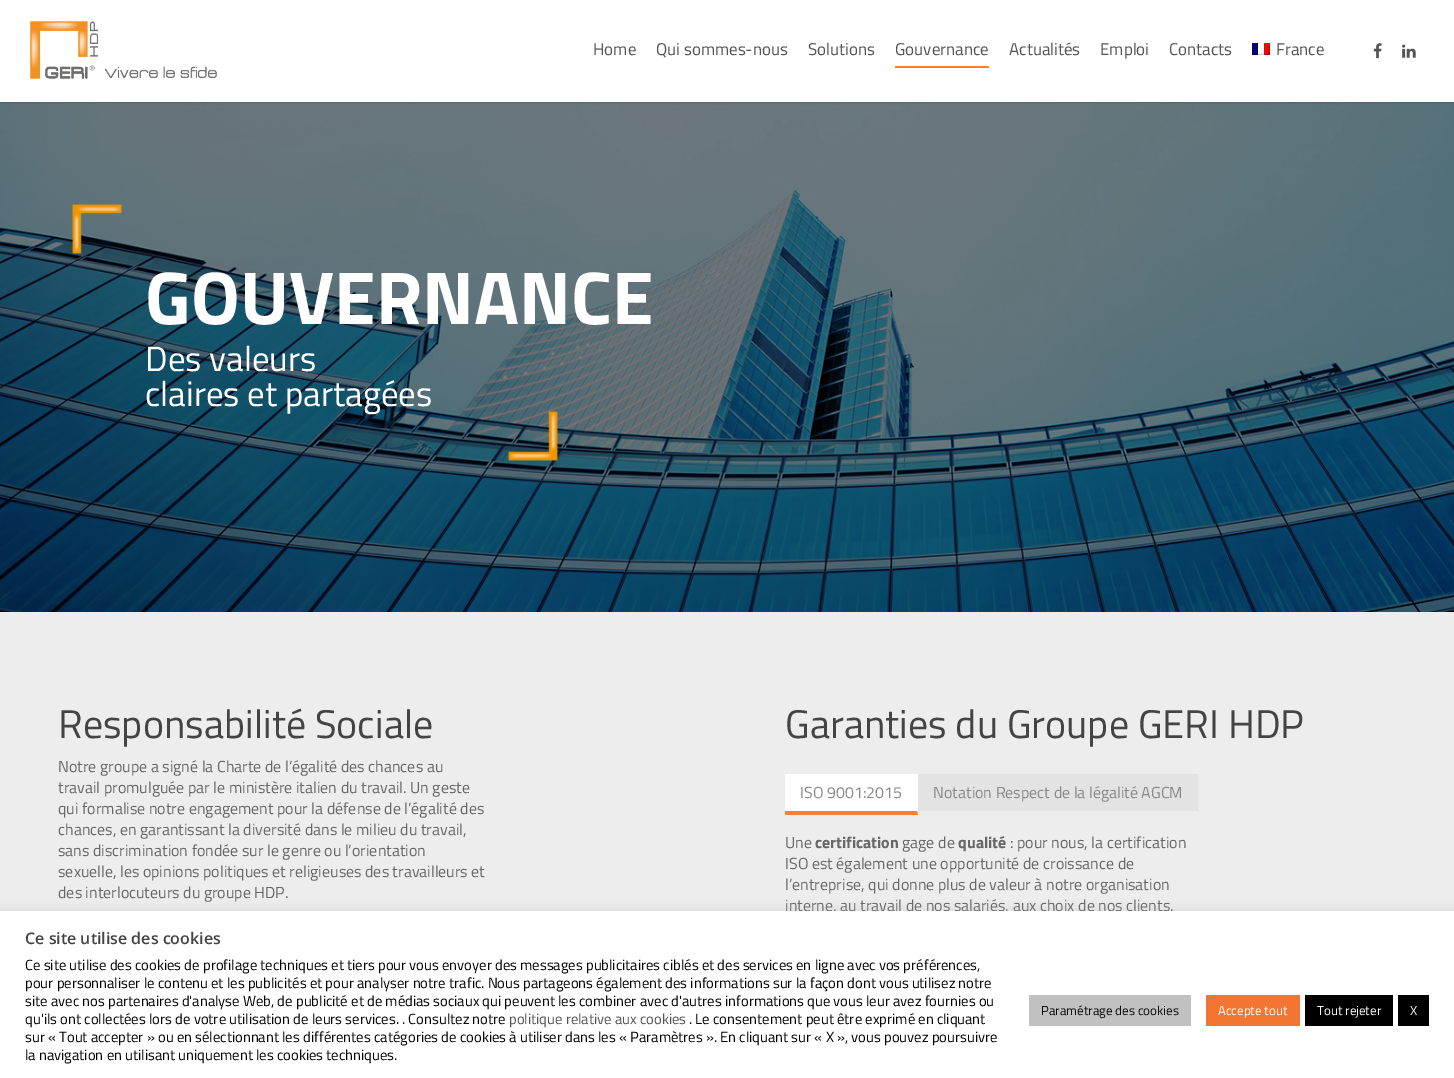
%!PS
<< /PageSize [1454 1078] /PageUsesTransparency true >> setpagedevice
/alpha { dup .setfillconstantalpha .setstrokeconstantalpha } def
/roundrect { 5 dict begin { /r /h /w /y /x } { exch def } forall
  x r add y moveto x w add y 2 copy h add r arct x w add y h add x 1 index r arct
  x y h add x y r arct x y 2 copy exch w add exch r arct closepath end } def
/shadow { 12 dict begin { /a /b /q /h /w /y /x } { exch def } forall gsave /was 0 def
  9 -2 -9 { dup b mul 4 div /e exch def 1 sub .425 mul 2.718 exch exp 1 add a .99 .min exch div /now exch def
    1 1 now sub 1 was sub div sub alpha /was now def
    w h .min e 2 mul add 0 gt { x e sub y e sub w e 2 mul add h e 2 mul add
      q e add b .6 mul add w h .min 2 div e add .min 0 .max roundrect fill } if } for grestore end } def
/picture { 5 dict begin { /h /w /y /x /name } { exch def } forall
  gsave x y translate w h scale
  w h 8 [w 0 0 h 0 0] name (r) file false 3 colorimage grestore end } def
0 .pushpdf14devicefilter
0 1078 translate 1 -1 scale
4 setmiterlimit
1 setgray
0 0 1454 1078 rectfill
(img5.rgb) 0 102 1454 510 picture
0 setgray
0 0 1454 102 0 1.5 0.22 shadow
1 setgray
0 0 1454 102 rectfill
(img1.rgb) 30 21 187 58 picture
/TitilliumWeb-Regular [17 0 0 -17 0 0] selectfont
0.329 setgray
593 55 moveto (Home) show
656 55 moveto (Qui sommes-nous) show
808 55 moveto (Solutions) show
895 55 moveto (Gouvernance) show
1 0.498 0.173 setrgbcolor
895 66 94 2 rectfill
0.329 setgray
1009 55 moveto (Actualités) show
1100 55 moveto (Emploi) show
1169 55 moveto (Contacts) show
(img2.rgb) 1252 43 18 12 picture
1276 55 moveto (France) show
(img3.rgb) 1373 43 9 16 picture
(img4.rgb) 1402 44 14 14 picture
(img6.rgb) 72 204 50 50 picture
/TitilliumWeb-Bold [75 0 0 -75 0 0] selectfont
1 setgray
145 324 moveto (GOUVERNANCE) show
/TitilliumWeb-Regular [35 0 0 -35 0 0] selectfont
145 371 moveto (Des valeurs) show
145 406 moveto (claires et partagées) show
(img7.rgb) 508 411 50 50 picture
0.929 setgray
0 612 1454 299 rectfill
/TitilliumWeb-Regular [40 0 0 -40 0 0] selectfont
0.267 setgray
58 738 moveto (Responsabilité Sociale) show
/TitilliumWeb-Regular [16 0 0 -16 0 0] selectfont
0.404 setgray
58 772 moveto (Notre groupe a signé la Charte de l’égalité des chances au) show
58 793 moveto (travail promulguée par le ministère italien du travail. Un geste) show
58 814 moveto (qui formalise notre engagement pour la défense de l’égalité des) show
58 835 moveto (chances, en garantissant la diversité dans le milieu du travail,) show
58 856 moveto (sans discrimination fondée sur le genre ou l’orientation) show
58 877 moveto (sexuelle, les opinions politiques et religieuses des travailleurs et) show
58 898 moveto (des interlocuteurs du groupe HDP.) show
/TitilliumWeb-Regular [40 0 0 -40 0 0] selectfont
0.267 setgray
785 738 moveto (Garanties du Groupe GERI HDP) show
1 setgray
785 774 133 41 rectfill
1 0.498 0.173 setrgbcolor
newpath 918 815 moveto 785 815 lineto 785 811 lineto 917 811 lineto closepath fill
/TitilliumWeb-Regular [16 0 0 -16 0 0] selectfont
0.533 setgray
800 798 moveto (ISO 9001:2015) show
0.89 setgray
918 774 280 37 rectfill
0.533 setgray
933 798 moveto (Notation Respect de la légalité AGCM) show
0.404 setgray
785 848 moveto (Une) show
/TitilliumWeb-Bold [16 0 0 -16 0 0] selectfont
815 848 moveto (certification) show
/TitilliumWeb-Regular [16 0 0 -16 0 0] selectfont
902 848 moveto (gage de) show
/TitilliumWeb-Bold [16 0 0 -16 0 0] selectfont
958 848 moveto (qualité) show
/TitilliumWeb-Regular [16 0 0 -16 0 0] selectfont
1010 848 moveto (: pour nous, la certification) show
785 869 moveto (ISO est également une opportunité de croissance de) show
785 890 moveto (l’entreprise, qui donne plus de valeur à notre organisation) show
785 911 moveto (interne, au travail de nos salariés, aux choix de nos clients.) show
0.675 0.671 0.671 setrgbcolor
0 910 1454 167 0 5 0.3 shadow
1 setgray
0 911 1454 167 rectfill
/OpenSans-SemiBold [16 0 0 -16 0 0] selectfont
0.267 setgray
25 944 moveto (Ce site utilise des cookies) show
/TitilliumWeb-Regular [14.67 0 0 -14.67 0 0] selectfont
0 setgray
25 970 moveto (Ce site utilise des cookies de profilage techniques et tiers pour vous envoyer des messages publicitaires ciblés et des services en ligne avec vos préférences,) show
25 988 moveto (pour personnaliser le contenu et les publicités et pour analyser notre trafic. Nous partageons également des informations sur la façon dont vous utilisez notre) show
25 1006 moveto (site avec nos partenaires d'analyse Web, de publicité et de médias sociaux qui peuvent les combiner avec d'autres informations que vous leur avez fournies ou) show
25 1024 moveto (qu'ils ont collectées lors de votre utilisation de leurs services. . Consultez notre) show
0.329 setgray
509 1024 moveto (politique relative aux cookies) show
0 setgray
689 1024 moveto (. Le consentement peut être exprimé en cliquant) show
25 1042 moveto (sur « Tout accepter » ou en sélectionnant les différentes catégories de cookies à utiliser dans les « Paramètres ». En cliquant sur « X », vous pouvez poursuivre) show
25 1060 moveto (la navigation en utilisant uniquement les cookies techniques.) show
0.757 setgray
1029 995 162 31 rectfill
/TitilliumWeb-Regular [13 0 0 -13 0 0] selectfont
0.039 setgray
1041 1015 moveto (Paramétrage des cookies) show
0.949 0.463 0.192 setrgbcolor
1206 995 94 31 rectfill
1 setgray
1218 1015 moveto (Accepte tout) show
0 setgray
1305 995 88 31 rectfill
1 setgray
1317 1015 moveto (Tout rejeter) show
0 setgray
1398 995 31 31 rectfill
1 setgray
1410 1015 moveto (X) show
.poppdf14devicefilter showpage
